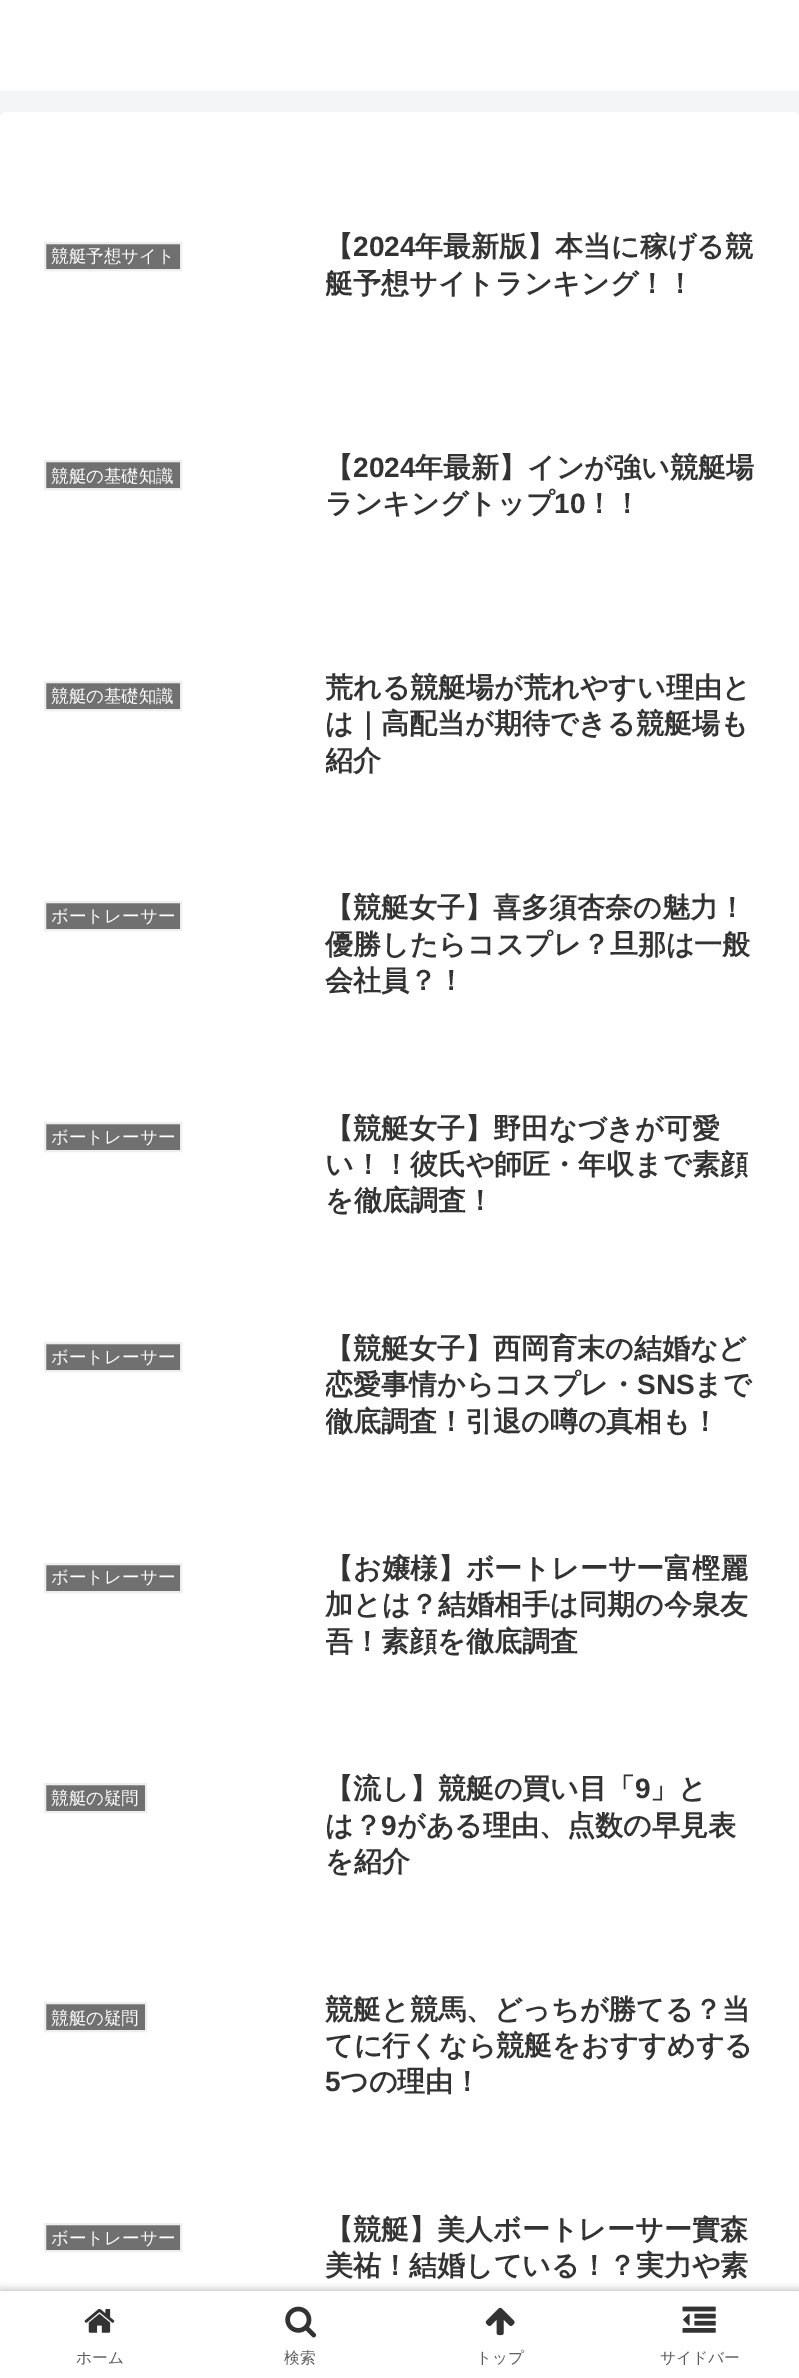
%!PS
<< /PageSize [799 2378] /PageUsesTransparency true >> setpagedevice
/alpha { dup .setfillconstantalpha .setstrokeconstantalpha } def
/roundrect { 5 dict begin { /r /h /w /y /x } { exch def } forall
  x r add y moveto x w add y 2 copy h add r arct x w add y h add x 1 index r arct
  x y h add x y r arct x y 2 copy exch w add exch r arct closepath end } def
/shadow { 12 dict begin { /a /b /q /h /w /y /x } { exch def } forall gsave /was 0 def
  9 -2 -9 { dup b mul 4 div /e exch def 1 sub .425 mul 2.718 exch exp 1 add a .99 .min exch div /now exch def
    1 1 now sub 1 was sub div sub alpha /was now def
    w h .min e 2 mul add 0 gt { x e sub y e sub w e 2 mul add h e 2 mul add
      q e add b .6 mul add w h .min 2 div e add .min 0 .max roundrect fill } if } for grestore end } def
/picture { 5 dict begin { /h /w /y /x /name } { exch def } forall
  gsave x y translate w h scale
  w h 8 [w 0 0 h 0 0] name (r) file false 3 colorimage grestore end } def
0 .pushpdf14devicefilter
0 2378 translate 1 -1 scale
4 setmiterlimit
0.957 0.961 0.969 setrgbcolor
0 0 799 2378 rectfill
1 setgray
0 0 799 91 rectfill
0 112 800 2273 7 roundrect fill
0.439 setgray
newpath 45 243 moveto 181 243 lineto 181 270 lineto 45 270 lineto closepath gsave fill grestore
0.933 setgray
2 setlinewidth
stroke
/WenQuanYiZenHei-Medium [17.5 0 0 -17.5 0 0] selectfont
1 setgray
51 262 moveto (競艇予想サイト) show
/WenQuanYiZenHei-Bold [28 0 0 -28 0 0] selectfont
0.2 setgray
325 256 moveto (【) show
/LiberationSans-Bold [28 0 0 -28 0 0] selectfont
353 256 moveto (2024) show
/WenQuanYiZenHei-Bold [28 0 0 -28 0 0] selectfont
415 256 moveto (年最新版】本当に稼げる競) show
gsave
326 231 435 72 rectclip
325 293 moveto (艇予想サイトランキング！！) show
grestore
0.439 setgray
newpath 45 461 moveto 181 461 lineto 181 489 lineto 45 489 lineto closepath gsave fill grestore
0.933 setgray
stroke
/WenQuanYiZenHei-Medium [17.5 0 0 -17.5 0 0] selectfont
1 setgray
51 482 moveto (競艇の基礎知識) show
/WenQuanYiZenHei-Bold [28 0 0 -28 0 0] selectfont
0.2 setgray
325 477 moveto (【) show
/LiberationSans-Bold [28 0 0 -28 0 0] selectfont
353 477 moveto (2024) show
/WenQuanYiZenHei-Bold [28 0 0 -28 0 0] selectfont
415 477 moveto (年最新】インが強い競艇場) show
325 513 moveto (ランキングトップ) show
/LiberationSans-Bold [28 0 0 -28 0 0] selectfont
554 513 moveto (10) show
/WenQuanYiZenHei-Bold [28 0 0 -28 0 0] selectfont
585 513 moveto (！！) show
0.439 setgray
newpath 45 682 moveto 181 682 lineto 181 710 lineto 45 710 lineto closepath gsave fill grestore
0.933 setgray
stroke
/WenQuanYiZenHei-Medium [17.5 0 0 -17.5 0 0] selectfont
1 setgray
51 702 moveto (競艇の基礎知識) show
gsave
326 670 435 111 rectclip
/WenQuanYiZenHei-Bold [28 0 0 -28 0 0] selectfont
0.2 setgray
325 697 moveto (荒れる競艇場が荒れやすい理由と) show
grestore
/WenQuanYiZenHei-Bold [28 0 0 -28 0 0] selectfont
0.2 setgray
325 733 moveto (は｜高配当が期待できる競艇場も) show
gsave
326 670 435 111 rectclip
325 770 moveto (紹介) show
grestore
0.439 setgray
newpath 45 902 moveto 181 902 lineto 181 930 lineto 45 930 lineto closepath gsave fill grestore
0.933 setgray
stroke
/WenQuanYiZenHei-Medium [17.5 0 0 -17.5 0 0] selectfont
1 setgray
51 922 moveto (ボートレーサー) show
/WenQuanYiZenHei-Bold [28 0 0 -28 0 0] selectfont
0.2 setgray
325 917 moveto (【競艇女子】喜多須杏奈の魅力！) show
325 954 moveto (優勝したらコスプレ？旦那は一般) show
325 990 moveto (会社員？！) show
0.439 setgray
newpath 45 1123 moveto 181 1123 lineto 181 1151 lineto 45 1151 lineto closepath gsave fill grestore
0.933 setgray
stroke
/WenQuanYiZenHei-Medium [17.5 0 0 -17.5 0 0] selectfont
1 setgray
51 1143 moveto (ボートレーサー) show
/WenQuanYiZenHei-Bold [28 0 0 -28 0 0] selectfont
0.2 setgray
325 1138 moveto (【競艇女子】野田なづきが可愛) show
325 1174 moveto (い！！彼氏や師匠・年収まで素顔) show
325 1210 moveto (を徹底調査！) show
0.439 setgray
newpath 45 1343 moveto 181 1343 lineto 181 1371 lineto 45 1371 lineto closepath gsave fill grestore
0.933 setgray
stroke
/WenQuanYiZenHei-Medium [17.5 0 0 -17.5 0 0] selectfont
1 setgray
51 1363 moveto (ボートレーサー) show
/WenQuanYiZenHei-Bold [28 0 0 -28 0 0] selectfont
0.2 setgray
325 1358 moveto (【競艇女子】西岡育末の結婚など) show
gsave
326 1332 435 108 rectclip
325 1394 moveto (恋愛事情からコスプレ・) show
grestore
/LiberationSans-Bold [28 0 0 -28 0 0] selectfont
637 1394 moveto (SNS) show
/WenQuanYiZenHei-Bold [28 0 0 -28 0 0] selectfont
694 1394 moveto (まで) show
gsave
326 1332 435 108 rectclip
325 1431 moveto (徹底調査！引退の噂の真相も！) show
grestore
0.439 setgray
newpath 45 1564 moveto 181 1564 lineto 181 1592 lineto 45 1592 lineto closepath gsave fill grestore
0.933 setgray
stroke
/WenQuanYiZenHei-Medium [17.5 0 0 -17.5 0 0] selectfont
1 setgray
51 1583 moveto (ボートレーサー) show
/WenQuanYiZenHei-Bold [28 0 0 -28 0 0] selectfont
0.2 setgray
325 1578 moveto (【お嬢様】ボートレーサー富樫麗) show
325 1614 moveto (加とは？結婚相手は同期の今泉友) show
gsave
326 1552 435 109 rectclip
325 1651 moveto (吾！素顔を徹底調査) show
grestore
0.439 setgray
newpath 45 1784 moveto 146 1784 lineto 146 1812 lineto 45 1812 lineto closepath gsave fill grestore
0.933 setgray
stroke
/WenQuanYiZenHei-Medium [17.5 0 0 -17.5 0 0] selectfont
1 setgray
51 1804 moveto (競艇の疑問) show
/WenQuanYiZenHei-Bold [28 0 0 -28 0 0] selectfont
0.2 setgray
325 1798 moveto (【流し】競艇の買い目「) show
/LiberationSans-Bold [28 0 0 -28 0 0] selectfont
635 1798 moveto (9) show
/WenQuanYiZenHei-Bold [28 0 0 -28 0 0] selectfont
650 1798 moveto (」と) show
325 1835 moveto (は？) show
/LiberationSans-Bold [28 0 0 -28 0 0] selectfont
381 1835 moveto (9) show
/WenQuanYiZenHei-Bold [28 0 0 -28 0 0] selectfont
397 1835 moveto (がある理由、点数の早見表) show
325 1871 moveto (を紹介) show
0.439 setgray
newpath 45 2003 moveto 146 2003 lineto 146 2031 lineto 45 2031 lineto closepath gsave fill grestore
0.933 setgray
stroke
/WenQuanYiZenHei-Medium [17.5 0 0 -17.5 0 0] selectfont
1 setgray
51 2024 moveto (競艇の疑問) show
/WenQuanYiZenHei-Bold [28 0 0 -28 0 0] selectfont
0.2 setgray
325 2019 moveto (競艇と競馬、どっちが勝てる？当) show
325 2055 moveto (てに行くなら競艇をおすすめする) show
/LiberationSans-Bold [28 0 0 -28 0 0] selectfont
325 2091 moveto (5) show
/WenQuanYiZenHei-Bold [28 0 0 -28 0 0] selectfont
340 2091 moveto (つの理由！) show
0.439 setgray
newpath 45 2224 moveto 181 2224 lineto 181 2251 lineto 45 2251 lineto closepath gsave fill grestore
0.933 setgray
stroke
/WenQuanYiZenHei-Medium [17.5 0 0 -17.5 0 0] selectfont
1 setgray
51 2244 moveto (ボートレーサー) show
/WenQuanYiZenHei-Bold [28 0 0 -28 0 0] selectfont
0.2 setgray
325 2239 moveto (【競艇】美人ボートレーサー實森) show
325 2275 moveto (美祐！結婚している！？実力や素) show
0.663 setgray
0 2291 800 87 0 4.5 1 shadow
1 setgray
0 2291 799 87 rectfill
(img1.rgb) 84 2309 31 24 picture
/WenQuanYiZenHei-Medium [15.75 0 0 -15.75 0 0] selectfont
0.361 setgray
76 2363 moveto (ホーム) show
(img2.rgb) 285 2306 32 32 picture
284 2363 moveto (検索) show
(img3.rgb) 485 2307 30 29 picture
476 2363 moveto (トップ) show
(img4.rgb) 682 2306 34 27 picture
660 2363 moveto (サイドバー) show
.poppdf14devicefilter showpage
